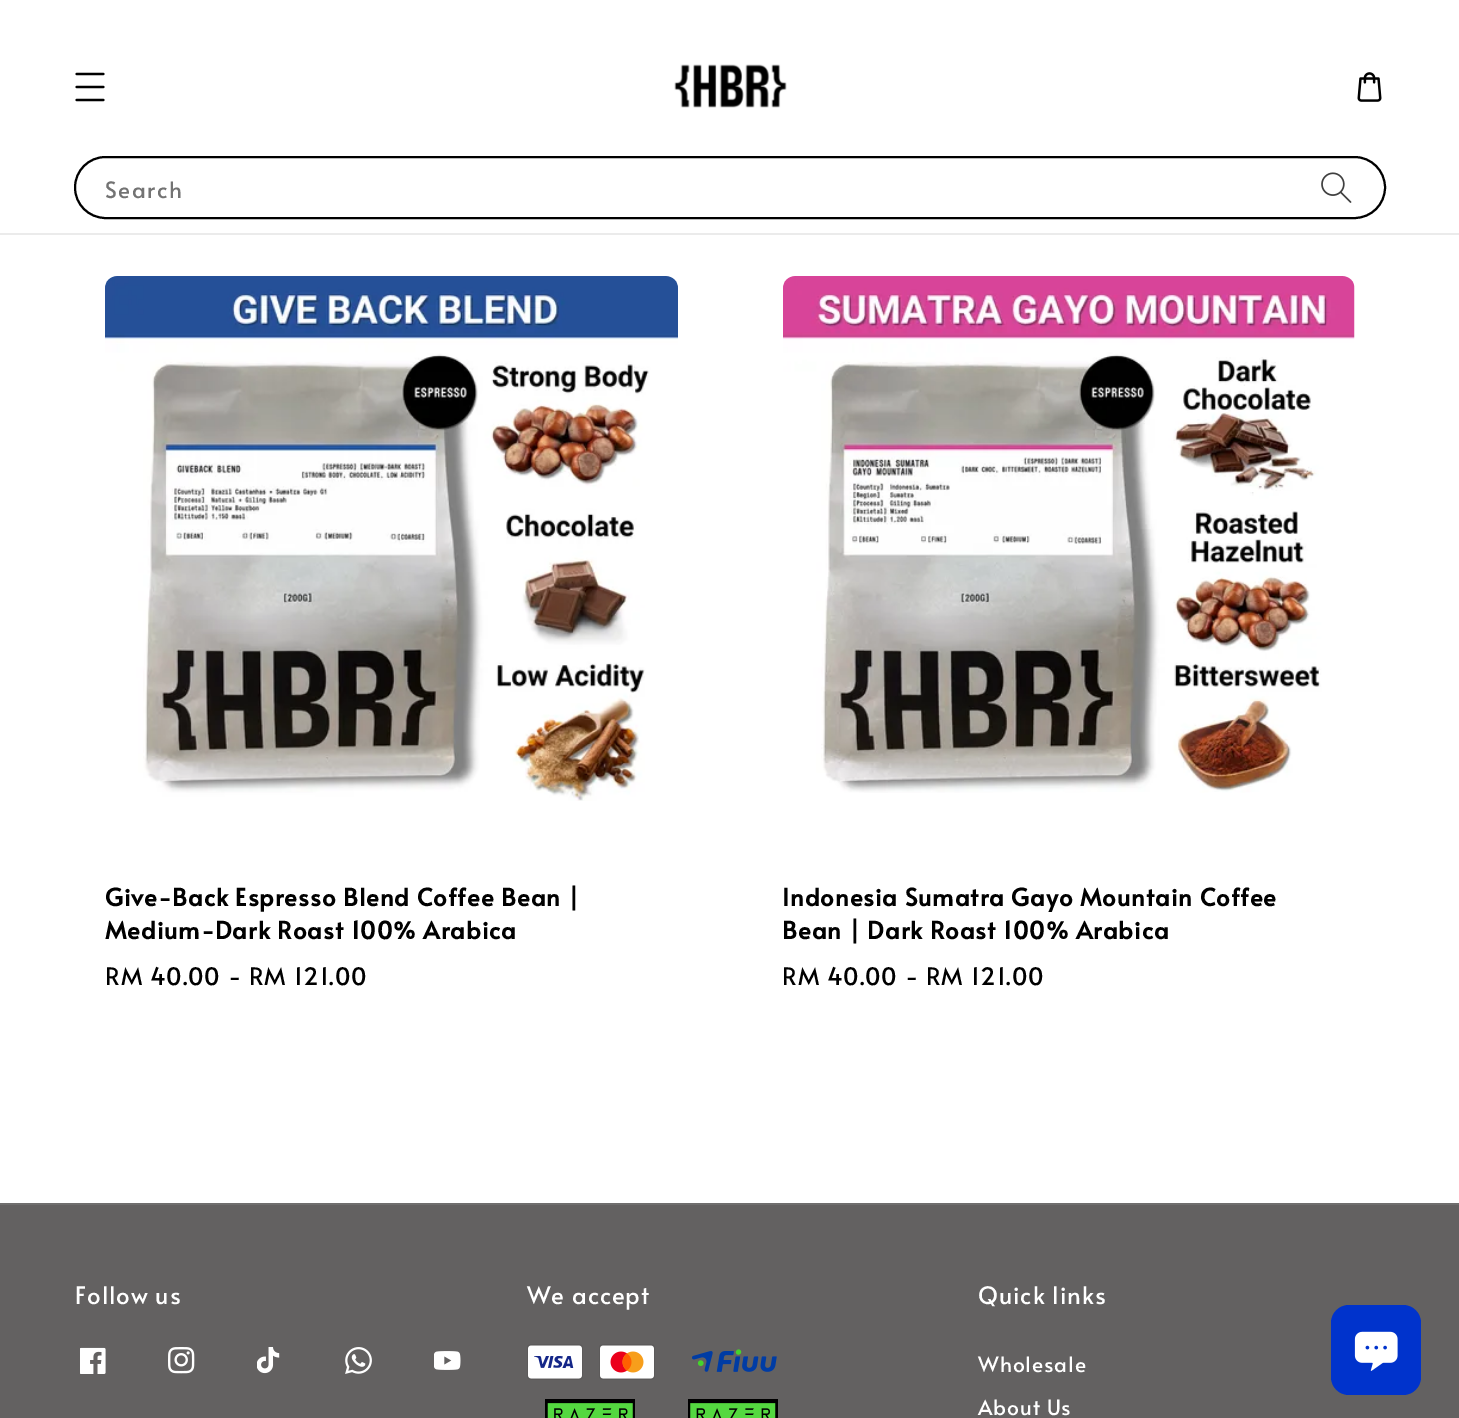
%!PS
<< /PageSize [1459 1418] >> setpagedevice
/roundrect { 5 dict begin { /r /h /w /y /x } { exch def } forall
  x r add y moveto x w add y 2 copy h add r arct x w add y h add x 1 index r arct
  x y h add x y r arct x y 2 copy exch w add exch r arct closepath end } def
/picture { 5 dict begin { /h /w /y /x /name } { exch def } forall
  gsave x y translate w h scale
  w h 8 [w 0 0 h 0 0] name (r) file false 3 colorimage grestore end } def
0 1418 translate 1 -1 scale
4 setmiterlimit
1 setgray
0 0 1459 1418 rectfill
0.922 setgray
0 233 1459 2 rectfill
(img1.rgb) 75 72 30 30 picture
(img2.rgb) 674 64 113 44 picture
(img3.rgb) 1357 72 25 30 picture
0 setgray
2 setlinewidth
75 157 1310 61 30.5 roundrect stroke
/Alata-Regular [22.5 0 0 -22.5 0 0] selectfont
0.451 setgray
105 198 moveto 1.5 0 (Search) ashow
(img4.rgb) 1321 172 31 31 picture
(img5.rgb) 105 276 573 525 picture
/Alata-Bold [24 0 0 -24 0 0] selectfont
0 setgray
105 906 moveto 0.9 0 (Give-Back Espresso Blend Coffee Bean |) ashow
105 939 moveto 0.9 0 (Medium-Dark Roast 100% Arabica) ashow
/Alata-Regular [24 0 0 -24 0 0] selectfont
105 985 moveto 0.9 0 (RM 40.00 - RM 121.00) ashow
(img6.rgb) 783 276 572 517 picture
/Alata-Bold [24 0 0 -24 0 0] selectfont
782 906 moveto 0.9 0 (Indonesia Sumatra Gayo Mountain Coffee) ashow
782 939 moveto 0.9 0 (Bean | Dark Roast 100% Arabica) ashow
/Alata-Regular [24 0 0 -24 0 0] selectfont
782 985 moveto 0.9 0 (RM 40.00 - RM 121.00) ashow
0.388 0.38 0.38 setrgbcolor
0 1205 1459 213 rectfill
0.435 0.431 0.431 setrgbcolor
0 1203 1459 2 rectfill
1 setgray
75 1304 moveto 0.9 0 (Follow us) ashow
(img7.rgb) 80 1347 26 27 picture
(img8.rgb) 168 1347 27 27 picture
(img9.rgb) 257 1347 23 27 picture
(img10.rgb) 345 1347 27 27 picture
(img11.rgb) 434 1351 27 19 picture
527 1304 moveto 0.9 0 (We accept) ashow
(img12.rgb) 527 1344 56 36 picture
(img13.rgb) 599 1344 56 36 picture
(img14.rgb) 692 1349 85 23 picture
(img15.rgb) 545 1399 90 19 picture
(img16.rgb) 688 1399 90 19 picture
978 1304 moveto 0.9 0 (Quick links) ashow
/Alata-Regular [21 0 0 -21 0 0] selectfont
978 1372 moveto 0.9 0 (Wholesale) ashow
978 1415 moveto 0.9 0 (About Us) ashow
0 0.2 0.8 setrgbcolor
1331 1305 90 90 18 roundrect fill
(img17.rgb) 1354 1331 44 40 picture
showpage
